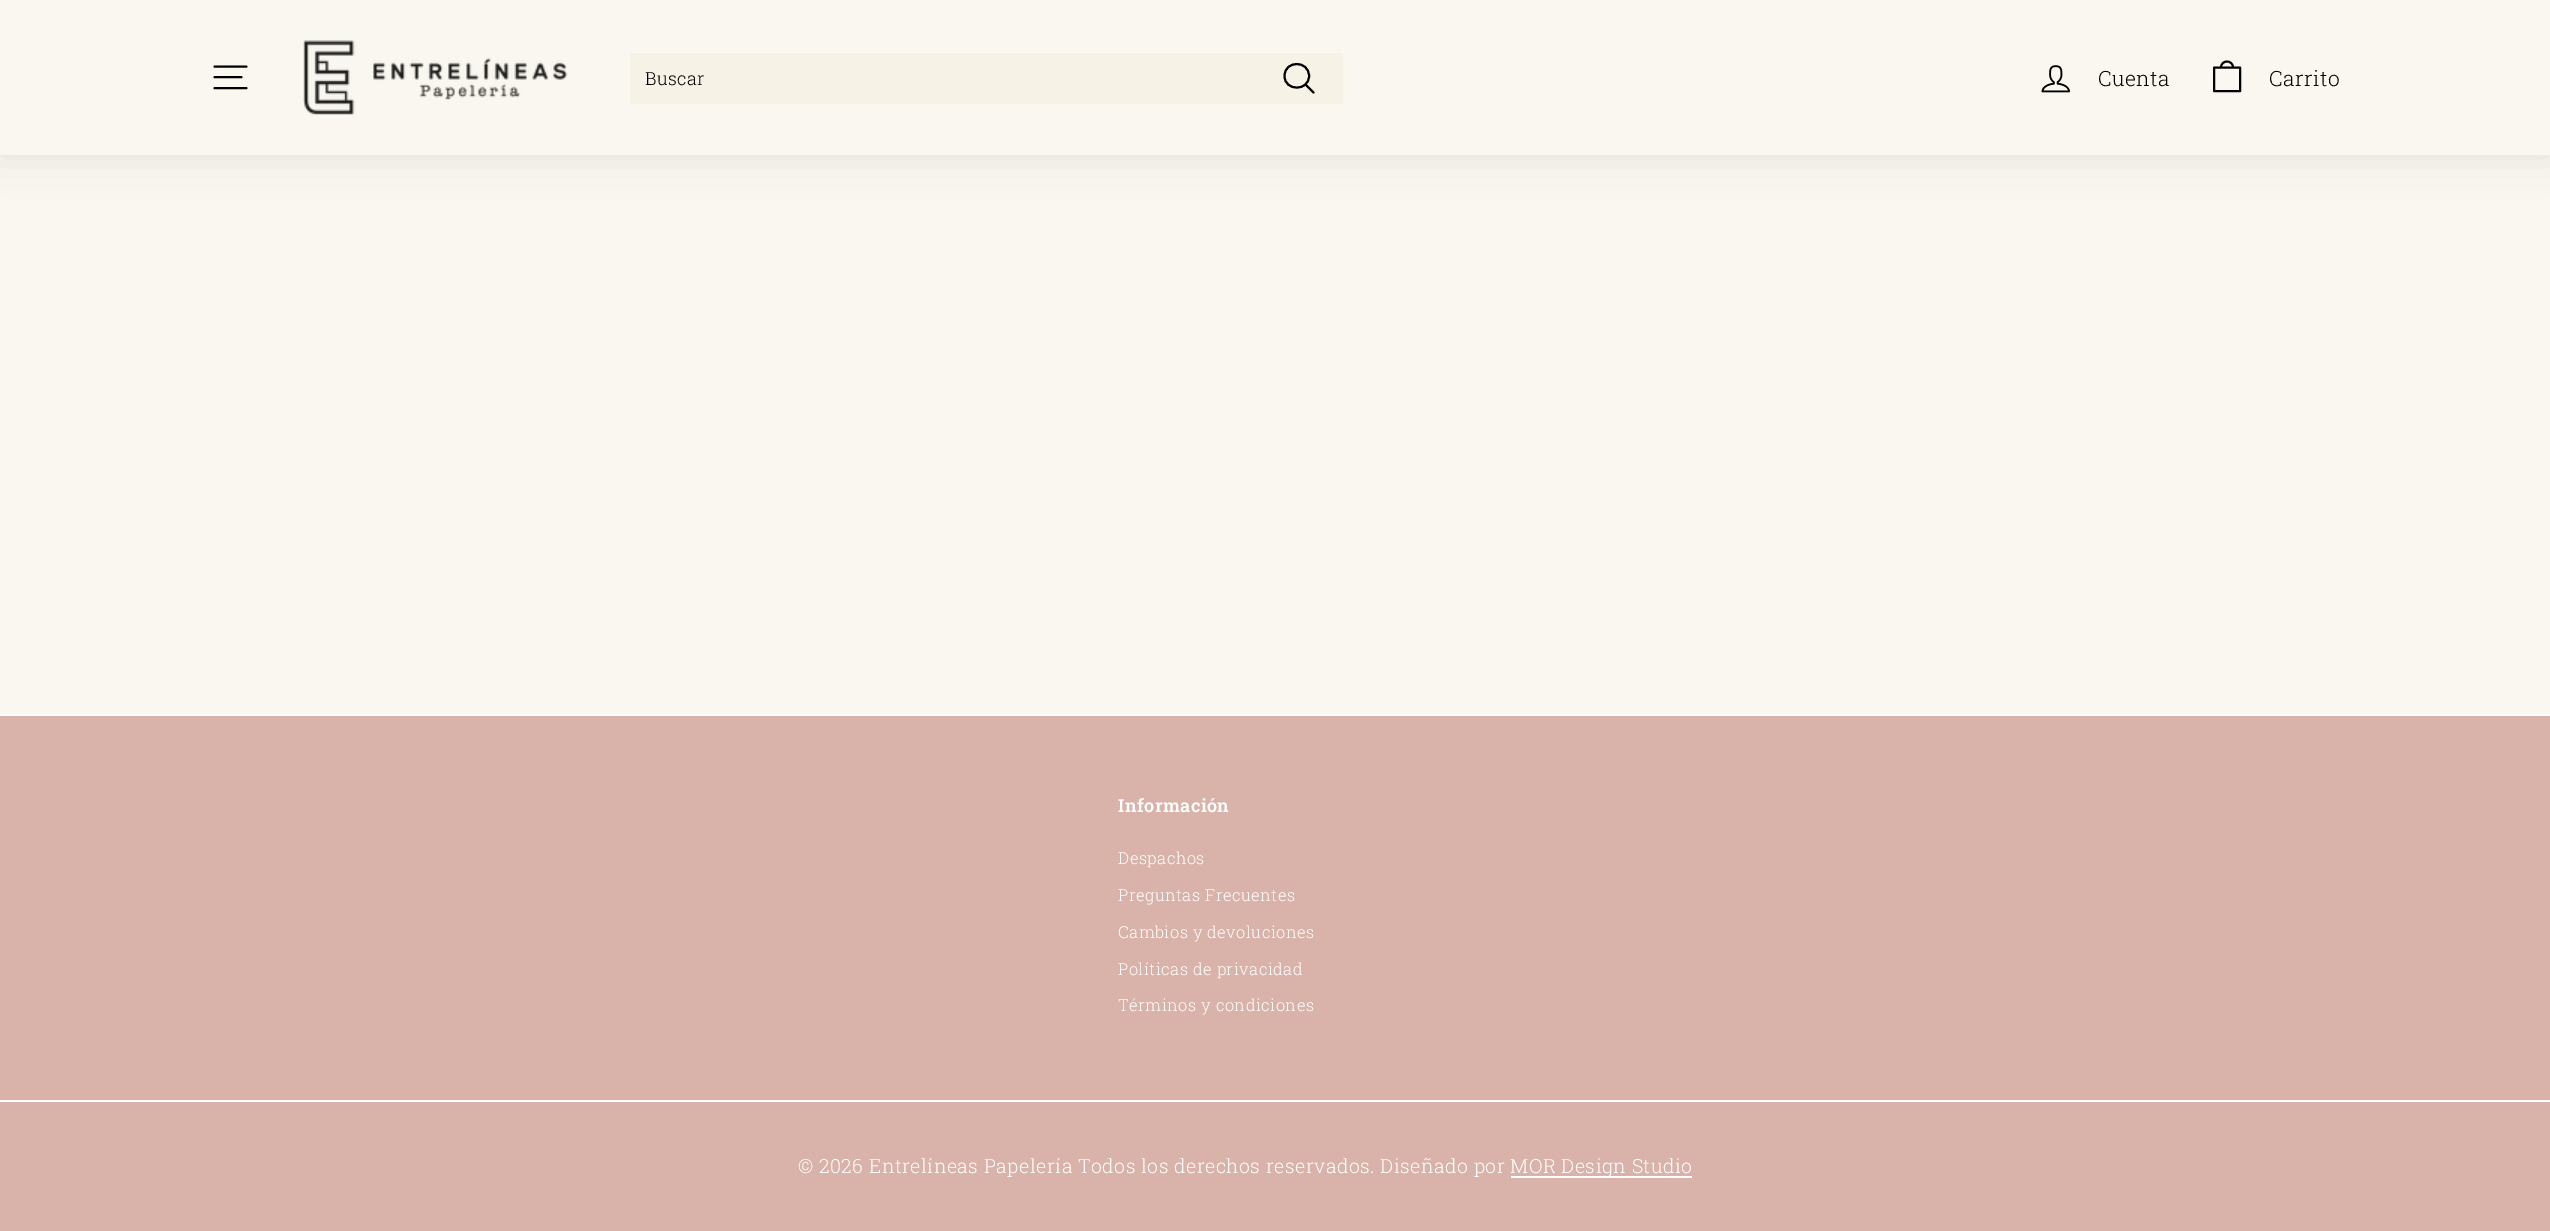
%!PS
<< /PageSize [2550 1231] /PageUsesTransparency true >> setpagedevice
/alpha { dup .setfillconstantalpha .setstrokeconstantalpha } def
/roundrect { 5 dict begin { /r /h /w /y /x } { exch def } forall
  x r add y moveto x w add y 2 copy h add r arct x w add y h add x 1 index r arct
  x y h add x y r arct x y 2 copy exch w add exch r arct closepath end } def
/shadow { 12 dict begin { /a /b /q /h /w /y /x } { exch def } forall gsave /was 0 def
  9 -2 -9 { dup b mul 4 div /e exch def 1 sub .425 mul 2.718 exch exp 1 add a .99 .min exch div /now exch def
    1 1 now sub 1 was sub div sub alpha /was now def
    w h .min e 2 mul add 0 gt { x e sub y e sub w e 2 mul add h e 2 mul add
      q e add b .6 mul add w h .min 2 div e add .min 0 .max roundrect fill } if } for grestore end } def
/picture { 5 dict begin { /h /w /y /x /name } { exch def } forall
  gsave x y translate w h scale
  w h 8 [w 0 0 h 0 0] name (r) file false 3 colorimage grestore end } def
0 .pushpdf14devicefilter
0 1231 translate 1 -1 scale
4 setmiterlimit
0.98 0.969 0.941 setrgbcolor
0 0 2550 1231 rectfill
0 setgray
0 0 2550 155 0 19 0.1 shadow
0.98 0.969 0.941 setrgbcolor
0 0 2550 155 rectfill
0 setgray
1.9 setlinewidth
1 setlinecap
1 setlinejoin
newpath 214.5 66.5 moveto 246.5 66.5 lineto 214.5 77 moveto 241.5 77 lineto 214.5 88 moveto 246.5 88 lineto stroke
(img1.rgb) 303 40 265 75 picture
0.965 0.949 0.898 setrgbcolor
630 53 713 51 rectfill
/RobotoSlab-Light [18 0 0 -18 0 0] selectfont
0 setgray
645 85 moveto 0.45 0 (Buscar) ashow
2 setlinewidth
newpath 1309 76 moveto 1309 91.5 1284.5 91.5 1284.5 76 curveto 1284.5 60 1309 60 1309 76 curveto closepath 1313.5 92.5 moveto 1305.5 84.5 lineto stroke
(img2.rgb) 2041 65 29 28 picture
/RobotoSlab-Light [21 0 0 -21 0 0] selectfont
2098 86 moveto 0.45 0 (Cuenta) ashow
1.9 setlinewidth
newpath 2221 67.5 moveto 2221 59.5 2233 59.5 2233 67.5 curveto 2214 67.5 moveto 2240 67.5 lineto 2240 91 lineto 2214 91 lineto closepath stroke
2269 86 moveto 0.45 0 (Carrito) ashow
0.851 0.698 0.663 setrgbcolor
0 716 2550 515 rectfill
1 setgray
0 714 2550 2 rectfill
/RobotoSlab-SemiBold [18 0 0 -18 0 0] selectfont
1118 812 moveto 0.45 0 (Información) ashow
/RobotoSlab-Light [16.5 0 0 -16.5 0 0] selectfont
1118 864 moveto 0.45 0 (Despachos) ashow
1118 901 moveto 0.45 0 (Preguntas Frecuentes) ashow
1118 938 moveto 0.45 0 (Cambios y devoluciones) ashow
1118 975 moveto 0.45 0 (Políticas de privacidad) ashow
1118 1011 moveto 0.45 0 (Términos y condiciones) ashow
0 1100 2550 2 rectfill
/RobotoSlab-Light [19.5 0 0 -19.5 0 0] selectfont
798 1173 moveto 0.45 0 (© 2026 Entrelíneas Papelería Todos los derechos reservados. Diseñado por) ashow
1511 1176 181 2 rectfill
1510 1173 moveto 0.45 0 (MOR Design Studio) ashow
.poppdf14devicefilter showpage
